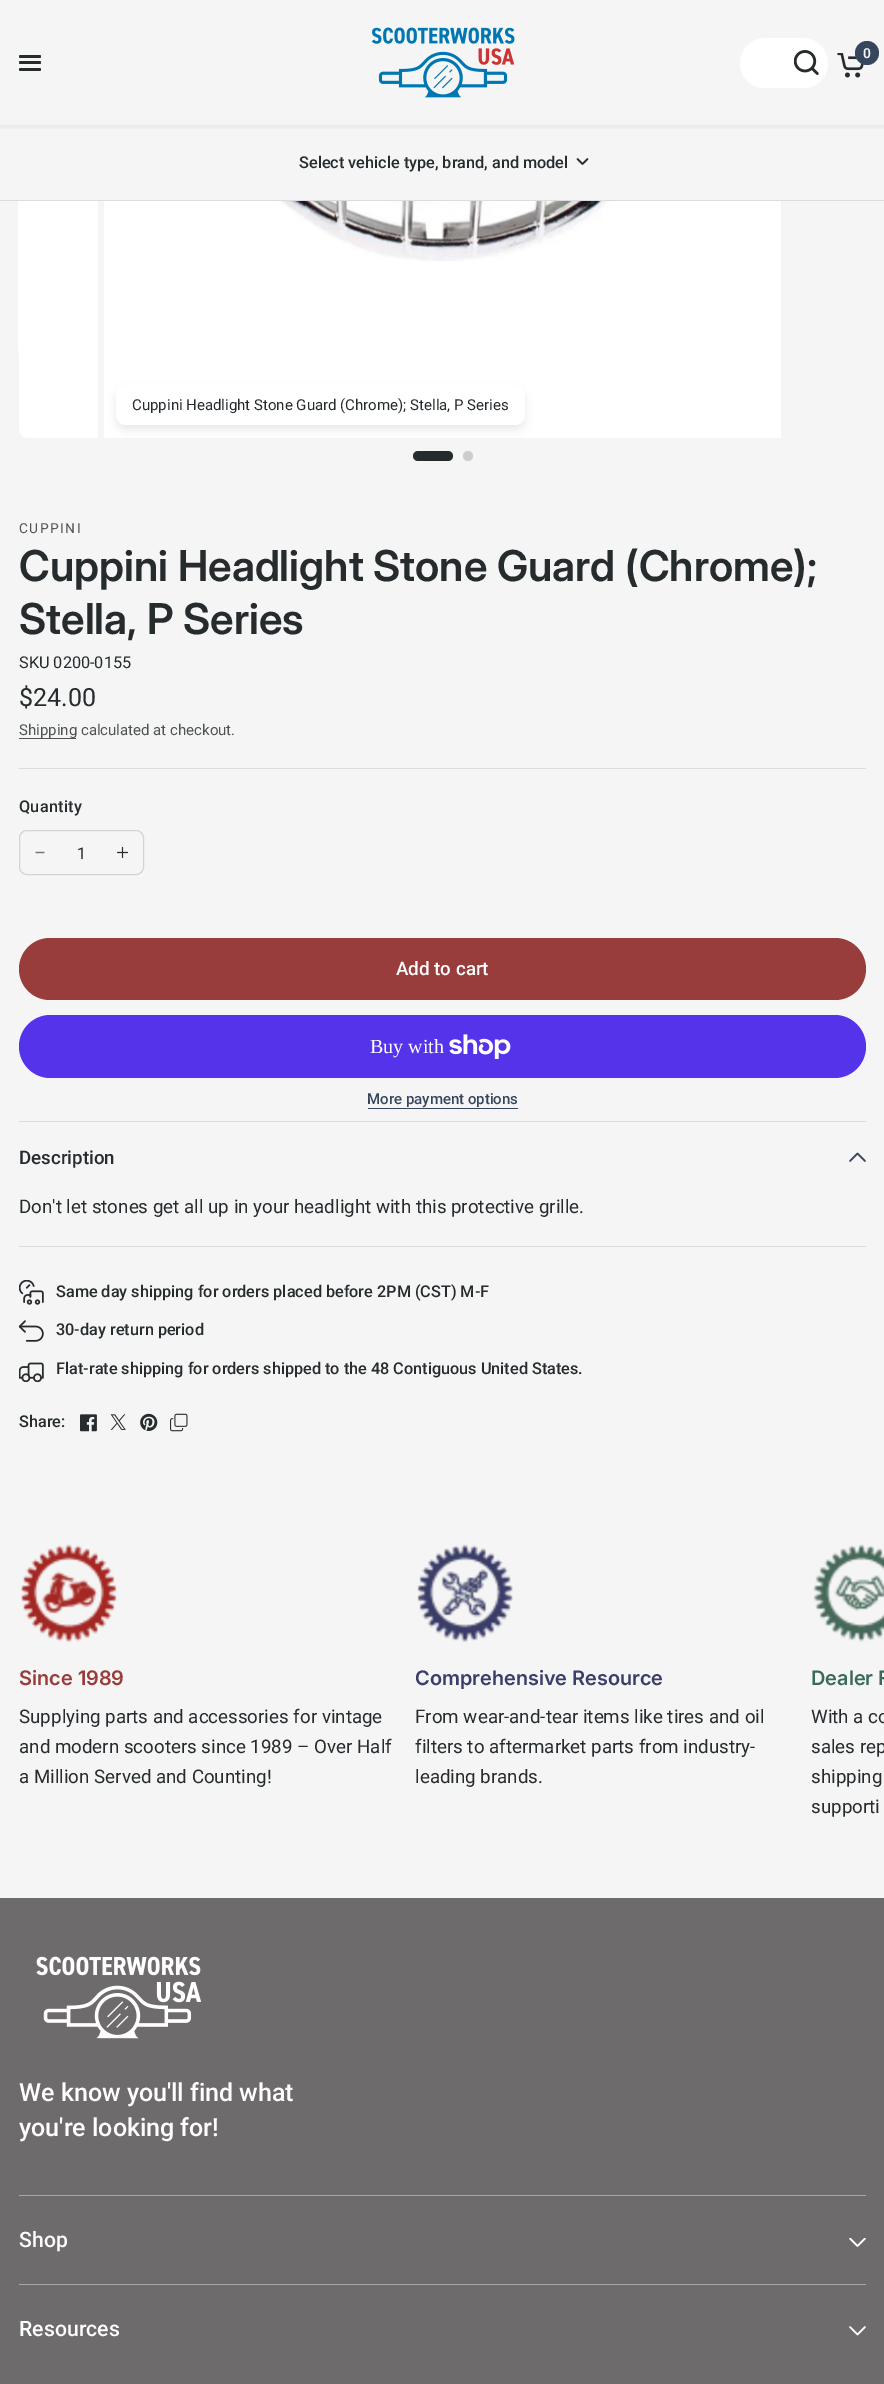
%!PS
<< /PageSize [884 2384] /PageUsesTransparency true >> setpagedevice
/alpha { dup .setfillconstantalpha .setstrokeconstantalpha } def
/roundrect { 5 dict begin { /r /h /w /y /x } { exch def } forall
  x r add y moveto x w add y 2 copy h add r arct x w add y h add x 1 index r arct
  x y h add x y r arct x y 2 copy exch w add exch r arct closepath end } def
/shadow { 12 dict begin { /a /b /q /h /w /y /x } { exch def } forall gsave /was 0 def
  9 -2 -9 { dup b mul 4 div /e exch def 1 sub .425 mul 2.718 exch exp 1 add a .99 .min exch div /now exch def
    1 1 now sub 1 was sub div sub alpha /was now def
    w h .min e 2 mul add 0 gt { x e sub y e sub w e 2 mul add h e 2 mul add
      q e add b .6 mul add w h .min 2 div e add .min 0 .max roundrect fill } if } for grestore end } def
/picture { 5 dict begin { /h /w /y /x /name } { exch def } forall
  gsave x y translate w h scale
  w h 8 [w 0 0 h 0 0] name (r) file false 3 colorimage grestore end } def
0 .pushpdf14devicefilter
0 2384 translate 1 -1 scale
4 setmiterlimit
0.427 0.42 0.42 setrgbcolor
0 0 884 2384 rectfill
0.961 setgray
0 201 884 1697 rectfill
1 setgray
newpath 29 -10 moveto 98 -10 lineto 98 438 lineto 29 438 lineto 23.5 438 19 433.5 19 428 curveto 19 0 lineto 19 -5.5 23.5 -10 29 -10 curveto closepath fill
0.961 setgray
0 0 884 200 rectfill
gsave
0 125 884 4 rectclip
0 setgray
0 3 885 125 0 3 0.06 shadow
grestore
(img1.rgb) 371 27 144 71 picture
1 setgray
740 38 88 50 25 roundrect fill
(img2.rgb) 794 50 25 25 picture
(img3.rgb) 837 53 27 25 picture
0.212 0.275 0.365 setrgbcolor
newpath 867 53 12 0 360 arc closepath fill
/Roboto-SemiBold [13.75 0 0 -13.75 0 0] selectfont
0.961 setgray
863 58 moveto (0) show
0.149 0.169 0.18 setrgbcolor
19 55 22 3 1.5 roundrect fill
19 61 22 3 1.5 roundrect fill
19 68 22 3 1.5 roundrect fill
0.855 0.863 0.878 setrgbcolor
0 200 884 1 rectfill
/Roboto-Medium [16.25 0 0 -16.25 0 0] selectfont
0.149 0.169 0.18 setrgbcolor
299 168 moveto (Select vehicle type, brand, and model) show
1.5 setlinewidth
1 setlinecap
1 setlinejoin
newpath 587.5 159 moveto 582.5 164 lineto 577.5 159 lineto stroke
(img4.rgb) 18 201 48 152 picture
1 setgray
104 201 677 237 rectfill
(img5.rgb) 165 201 556 61 picture
0 setgray
116 390 409 40 10 4 0.08 shadow
1 setgray
116 385 409 40 10 roundrect fill
/Roboto-Regular [15 0 0 -15 0 0] selectfont
0.149 0.169 0.18 setrgbcolor
132 410 moveto (Cuppini Headlight Stone Guard \(Chrome\); Stella, P Series) show
413 451 40 10 5 roundrect fill
0.8 0.804 0.804 setrgbcolor
newpath 468 456 5 0 360 arc closepath fill
/Roboto-Regular [13.75 0 0 -13.75 0 0] selectfont
0.31 0.325 0.337 setrgbcolor
19 533 moveto 1.5 0 (CUPPINI) ashow
0.855 0.863 0.878 setrgbcolor
19 768 847 1 rectfill
/Inter-SemiBold [42.5 0 0 -42.5 0 0] selectfont
0.149 0.169 0.18 setrgbcolor
19 581 moveto (Cuppini Headlight Stone Guard \(Chrome\);) show
19 634 moveto (Stella, P Series) show
/Roboto-Regular [16.25 0 0 -16.25 0 0] selectfont
19 668 moveto (SKU 0200-0155) show
/Roboto-Regular [25 0 0 -25 0 0] selectfont
19 706 moveto ($24.00) show
0.31 0.325 0.337 setrgbcolor
19 738 57 1 rectfill
/Roboto-Regular [15 0 0 -15 0 0] selectfont
19 735 moveto (Shipping calculated at checkout.) show
/Roboto-Medium [16.25 0 0 -16.25 0 0] selectfont
0.149 0.169 0.18 setrgbcolor
19 812 moveto 0.25 0 (Quantity) ashow
0.827 setgray
1 setlinewidth
0 setlinecap
0 setlinejoin
19.5 830.5 124 44 7.5 roundrect stroke
0.475 0.486 0.494 setrgbcolor
1.2 setlinewidth
1 setlinecap
1 setlinejoin
newpath 36 852.5 moveto 44 852.5 lineto stroke
/Roboto-Regular [16.25 0 0 -16.25 0 0] selectfont
0.149 0.169 0.18 setrgbcolor
77 859 moveto (1) show
(img6.rgb) 116 846 13 13 picture
0.596 0.239 0.235 setrgbcolor
19 938 847 62 31 roundrect fill
/Roboto-Medium [18.75 0 0 -18.75 0 0] selectfont
1 setgray
396 975 moveto (Add to cart) show
0.329 0.2 0.922 setrgbcolor
19 1015 847 63 31.5 roundrect fill
/LiberationSerif-Regular [20 0 0 -20 0 0] selectfont
1 setgray
370 1053 moveto (Buy with) show
(img7.rgb) 449 1034 62 25 picture
/Roboto-Medium [15 0 0 -15 0 0] selectfont
0.212 0.275 0.365 setrgbcolor
367 1104 moveto (More payment options) show
368 1108 150 1 rectfill
0.855 0.863 0.878 setrgbcolor
19 1121 847 1 rectfill
19 1246 847 1 rectfill
/Roboto-Medium [18.75 0 0 -18.75 0 0] selectfont
0.149 0.169 0.18 setrgbcolor
19 1164 moveto (Description) show
0.212 0.275 0.365 setrgbcolor
1.6 setlinewidth
newpath 865 1161 moveto 857.5 1153.5 lineto 850 1161 lineto stroke
/Roboto-Regular [18.75 0 0 -18.75 0 0] selectfont
0.149 0.169 0.18 setrgbcolor
19 1213 moveto (Don't let stones get all up in your headlight with this protective grille.) show
(img8.rgb) 19 1280 25 25 picture
/Roboto-Medium [16.25 0 0 -16.25 0 0] selectfont
56 1297 moveto (Same day shipping for orders placed before 2PM \(CST\) M-F) show
(img9.rgb) 19 1320 25 22 picture
56 1335 moveto (30-day return period) show
(img10.rgb) 19 1362 25 20 picture
56 1374 moveto (Flat-rate shipping for orders shipped to the 48 Contiguous United States.) show
19 1427 moveto (Share:) show
(img11.rgb) 80 1414 17 18 picture
(img12.rgb) 110 1414 16 16 picture
(img13.rgb) 140 1413 18 18 picture
(img14.rgb) 170 1413 18 19 picture
(img15.rgb) 21 1544 96 99 picture
/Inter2-SemiBold [20 0 0 -20 0 0] selectfont
0.596 0.239 0.235 setrgbcolor
19 1685 moveto (Since 1989) show
/Roboto-Regular [18.75 0 0 -18.75 0 0] selectfont
0.149 0.169 0.18 setrgbcolor
19 1723 moveto (Supplying parts and accessories for vintage) show
19 1753 moveto (and modern scooters since 1989 – Over Half) show
19 1783 moveto (a Million Served and Counting!) show
(img16.rgb) 417 1544 96 99 picture
/Inter2-SemiBold [20 0 0 -20 0 0] selectfont
0.227 0.243 0.42 setrgbcolor
415 1685 moveto (Comprehensive Resource) show
/Roboto-Regular [18.75 0 0 -18.75 0 0] selectfont
0.149 0.169 0.18 setrgbcolor
415 1723 moveto (From wear-and-tear items like tires and oil) show
415 1753 moveto (filters to aftermarket parts from industry-) show
415 1783 moveto (leading brands.) show
(img17.rgb) 813 1544 71 98 picture
/Inter2-SemiBold [20 0 0 -20 0 0] selectfont
0.227 0.416 0.345 setrgbcolor
811 1685 moveto (Dealer F) show
/Roboto-Regular [18.75 0 0 -18.75 0 0] selectfont
0.149 0.169 0.18 setrgbcolor
811 1723 moveto (With a co) show
811 1753 moveto (sales rep) show
811 1783 moveto (shipping) show
811 1813 moveto (supporti) show
(img18.rgb) 36 1956 166 83 picture
/Roboto-Medium [25 0 0 -25 0 0] selectfont
1 setgray
19 2101 moveto (We know you'll find what) show
19 2136 moveto (you're looking for!) show
0.655 0.651 0.651 setrgbcolor
19 2195 847 1 rectfill
/Roboto-Medium [21.25 0 0 -21.25 0 0] selectfont
1 setgray
19 2247 moveto (Shop) show
gsave
849 2238 17 10 rectclip
newpath 865 2238.5 moveto 857.5 2246 lineto 850 2238.5 lineto stroke
grestore
0.655 0.651 0.651 setrgbcolor
19 2284 847 1 rectfill
1 setgray
19 2336 moveto (Resources) show
newpath 865 2327 moveto 857.5 2334.5 lineto 850 2327 lineto stroke
.poppdf14devicefilter showpage
